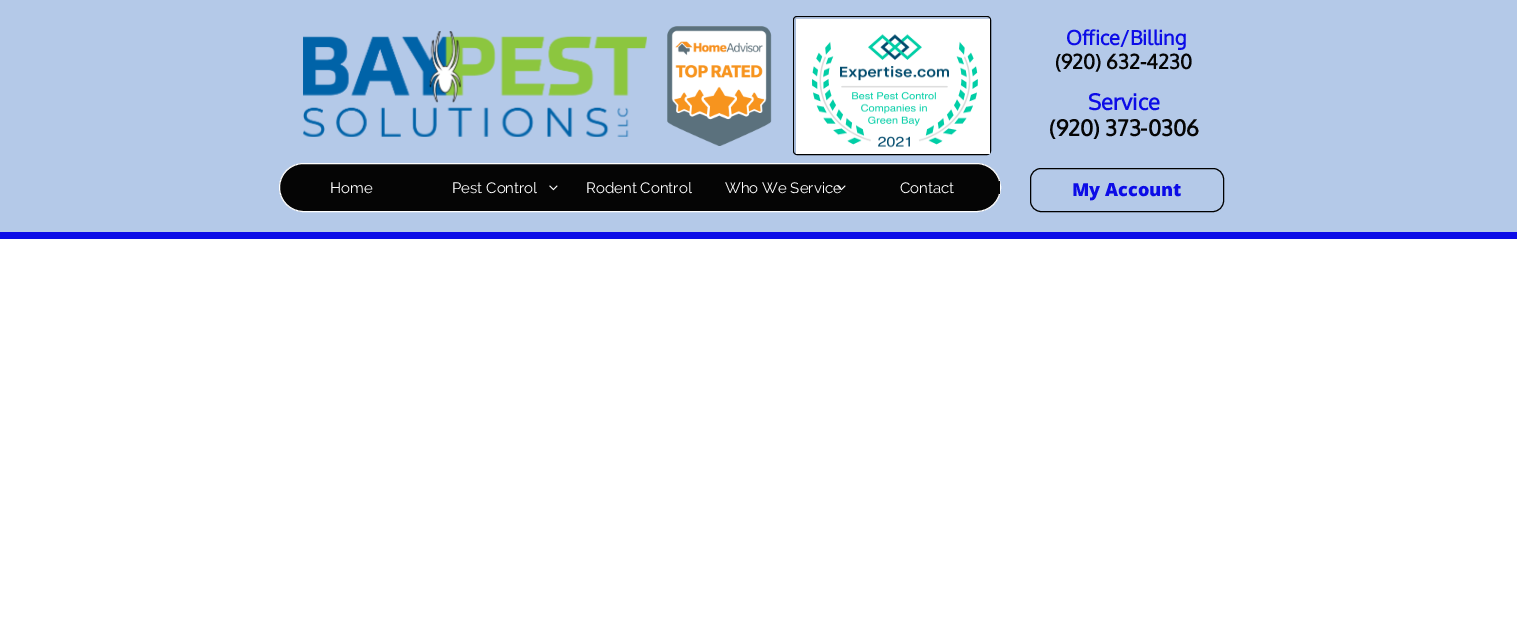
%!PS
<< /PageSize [1517 637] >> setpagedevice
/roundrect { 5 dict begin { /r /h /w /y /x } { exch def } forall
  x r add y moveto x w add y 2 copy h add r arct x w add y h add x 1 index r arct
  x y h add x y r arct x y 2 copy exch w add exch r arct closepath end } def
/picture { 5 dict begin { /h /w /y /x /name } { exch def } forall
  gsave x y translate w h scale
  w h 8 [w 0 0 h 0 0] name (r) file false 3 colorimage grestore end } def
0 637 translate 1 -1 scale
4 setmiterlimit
1 setgray
0 0 1517 637 rectfill
0.706 0.788 0.91 setrgbcolor
0 0 1517 232 rectfill
0.047 0.047 0.906 setrgbcolor
0 232 1517 7 rectfill
(img1.rgb) 303 31 344 106 picture
(img2.rgb) 667 26 105 120 picture
0 setgray
793.5 16.5 197 138 3.5 roundrect stroke
(img3.rgb) 794 17 196 137 picture
/Oxygen-Bold [20 0 0 -20 0 0] selectfont
0.047 0.047 0.906 setrgbcolor
1066 45 moveto (Office/Billing) show
0.02 setgray
1055 69 moveto (\(920\) 632-4230) show
/Oxygen-Bold [22 0 0 -22 0 0] selectfont
0.047 0.047 0.906 setrgbcolor
1088 110 moveto (Service) show
0.02 setgray
1049 136 moveto (\(920\) 373-0306) show
279.5 163.5 721 48 24 roundrect gsave fill grestore
1 setgray
stroke
/Raleway-Regular [15 0 0 -15 0 0] selectfont
330 193 moveto (Home) show
452 193 moveto (Pest Control) show
(img4.rgb) 549 185 9 6 picture
586 193 moveto (Rodent Control) show
725 193 moveto (Who We Service) show
(img5.rgb) 837 185 9 6 picture
gsave
280 164 720 47 23.5 roundrect clip newpath
856 164 144 47 23.5 roundrect clip newpath
0.02 setgray
999 181 1 13 rectfill
grestore
900 193 moveto (Contact) show
0 setgray
1030.5 168.5 193 43 10.5 roundrect stroke
/OpenSans-ExtraBold [18 0 0 -18 0 0] selectfont
0.047 0.047 0.906 setrgbcolor
1072 196 moveto (My Account) show
showpage
